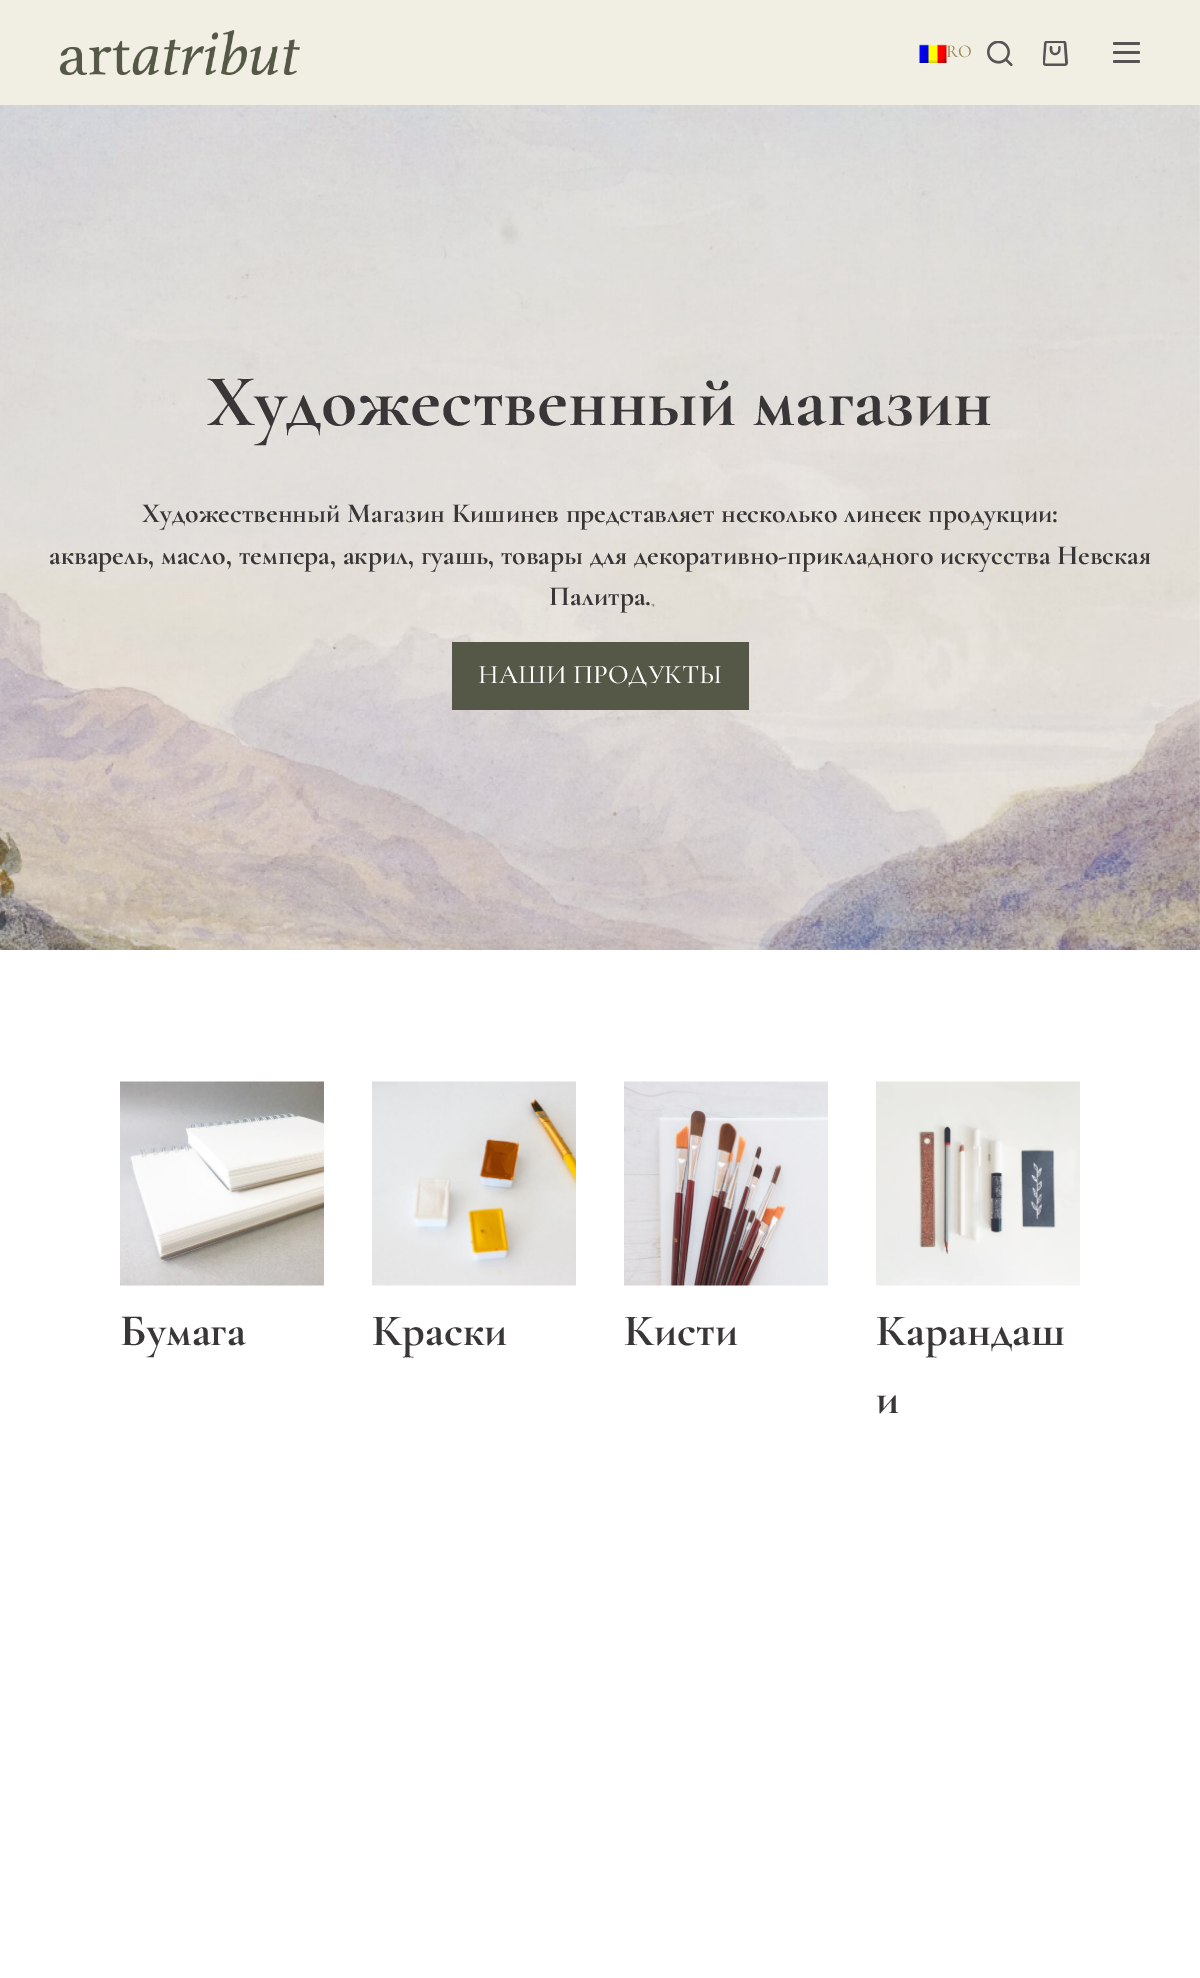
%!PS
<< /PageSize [1200 1978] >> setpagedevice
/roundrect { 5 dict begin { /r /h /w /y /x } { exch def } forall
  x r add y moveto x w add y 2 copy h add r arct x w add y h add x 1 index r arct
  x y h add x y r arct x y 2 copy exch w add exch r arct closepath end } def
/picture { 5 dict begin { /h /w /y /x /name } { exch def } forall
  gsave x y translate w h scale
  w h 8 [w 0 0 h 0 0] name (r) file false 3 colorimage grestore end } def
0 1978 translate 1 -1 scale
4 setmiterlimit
1 setgray
0 0 1200 1978 rectfill
0.945 0.937 0.89 setrgbcolor
0 0 1200 105 rectfill
(img1.rgb) 60 30 240 45 picture
(img2.rgb) 919 44 28 19 picture
/CormorantGaramond-Medium [18 0 0 -18 0 0] selectfont
0.624 0.545 0.349 setrgbcolor
946 57 moveto (RO) show
(img3.rgb) 987 41 26 25 picture
(img4.rgb) 1043 41 25 25 picture
0.337 0.329 0.329 setrgbcolor
1113 42 27 3 1.5 roundrect fill
1113 51 27 3 1.5 roundrect fill
1113 60 27 3 1.5 roundrect fill
(img5.rgb) 0 105 1200 845 picture
/CormorantGaramond-Bold [74 0 0 -74 0 0] selectfont
0.22 0.212 0.216 setrgbcolor
207 425 moveto (Художественный магазин) show
/CormorantGaramond-Bold [27.8 0 0 -27.8 0 0] selectfont
142 522 moveto (Художественный Магазин Кишинев представляет несколько линеек продукции:) show
49 564 moveto (акварель, масло, темпера, акрил, гуашь, товары для декоративно-прикладного искусства Невская) show
549 605 moveto (Палитра.) show
0.333 0.345 0.278 setrgbcolor
452 642 297 68 rectfill
/CormorantGaramond-Medium [27 0 0 -27 0 0] selectfont
1 setgray
478 683 moveto (НАШИ ПРОДУКТЫ) show
(img6.rgb) 120 1081 204 205 picture
/CormorantGaramond-Bold [45 0 0 -45 0 0] selectfont
0.22 0.212 0.216 setrgbcolor
120 1345 moveto (Бумага) show
(img7.rgb) 372 1081 204 205 picture
372 1345 moveto (Краски) show
(img8.rgb) 624 1081 204 205 picture
624 1345 moveto (Кисти) show
(img9.rgb) 876 1081 204 205 picture
876 1345 moveto (Карандаш) show
876 1413 moveto (и) show
showpage
